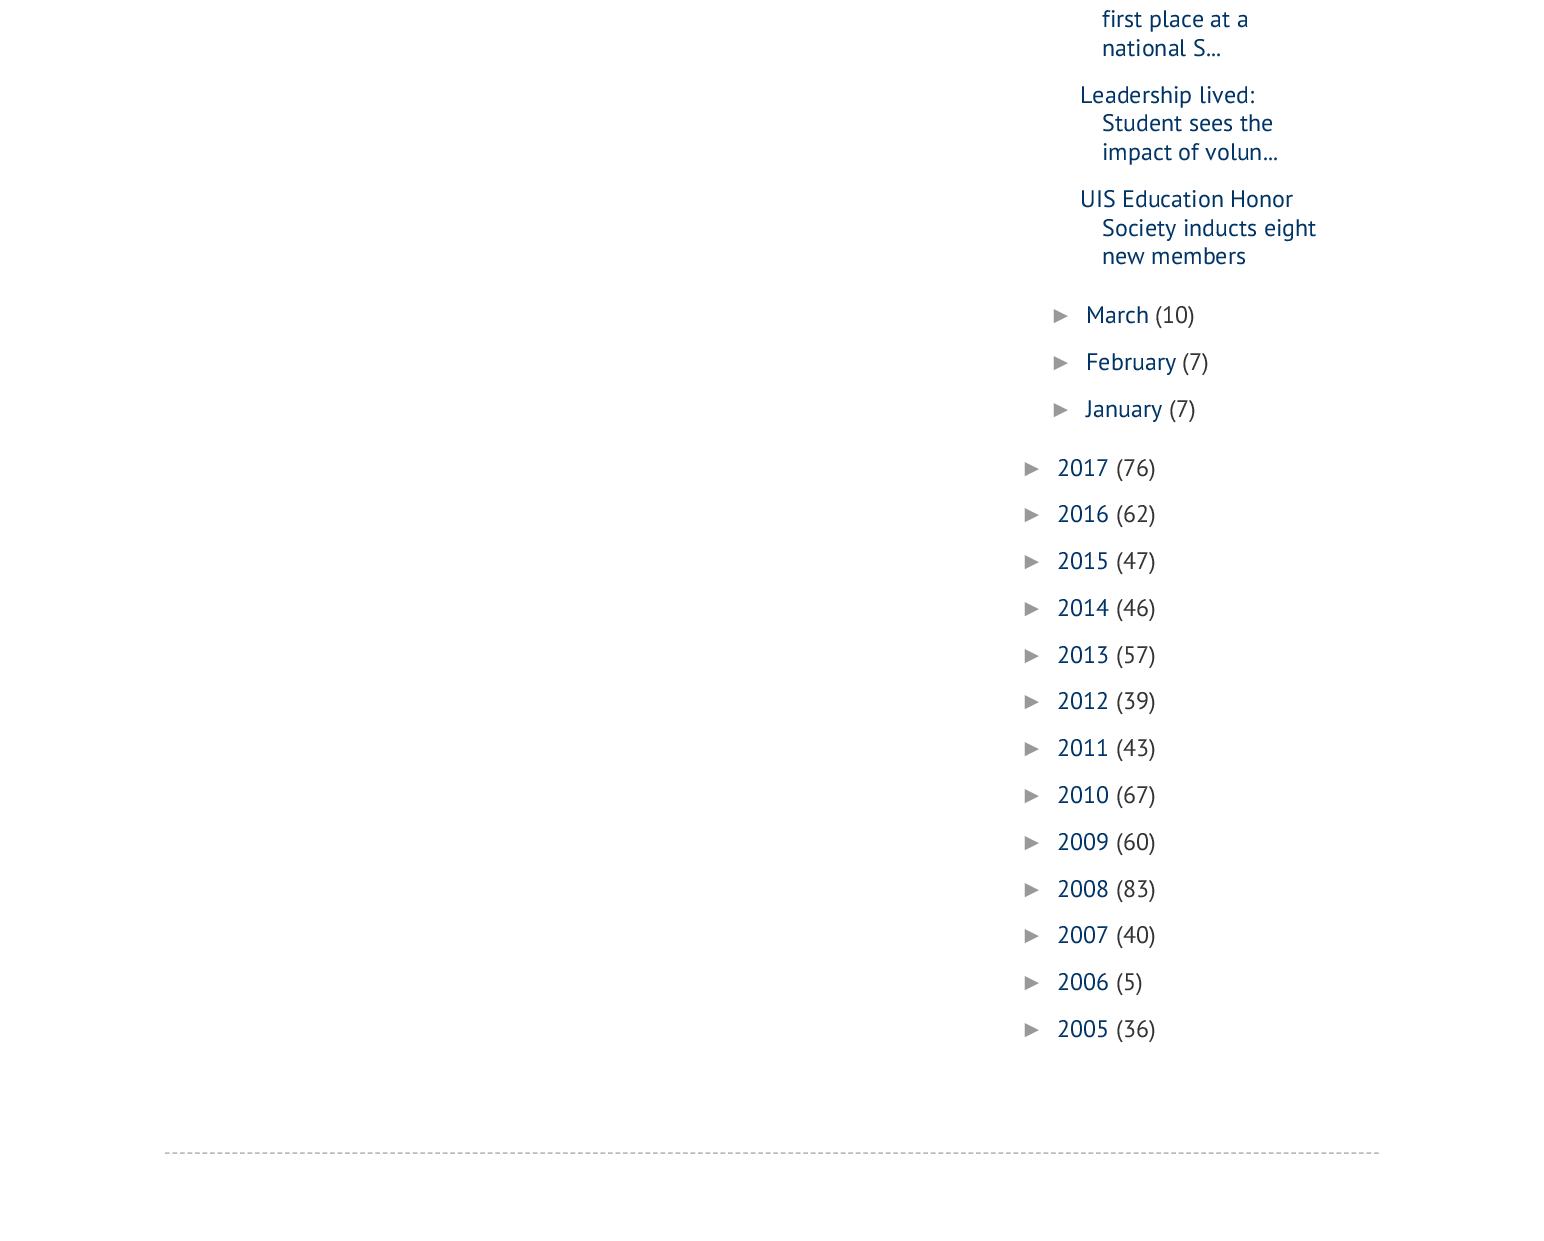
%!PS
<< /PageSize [1544 1241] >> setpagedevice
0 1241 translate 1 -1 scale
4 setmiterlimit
1 setgray
0 0 1544 1241 rectfill
/PTSans-Regular [24 0 0 -24 0 0] selectfont
0 0.2 0.4 setrgbcolor
1102 27 moveto (first place at a) show
1102 56 moveto (national S...) show
1080 103 moveto (Leadership lived:) show
1102 131 moveto (Student sees the) show
1102 160 moveto (impact of volun...) show
1080 207 moveto (UIS Education Honor) show
1102 236 moveto (Society inducts eight) show
1102 264 moveto (new members) show
/LiberationSans-Regular [24 0 0 -24 0 0] selectfont
0.6 setgray
1049 323 moveto (►) show
/PTSans-Regular [24 0 0 -24 0 0] selectfont
0 0.2 0.4 setrgbcolor
1086 323 moveto (March) show
0.2 setgray
1155 323 moveto (\(10\)) show
/LiberationSans-Regular [24 0 0 -24 0 0] selectfont
0.6 setgray
1049 370 moveto (►) show
/PTSans-Regular [24 0 0 -24 0 0] selectfont
0 0.2 0.4 setrgbcolor
1086 370 moveto (February) show
0.2 setgray
1182 370 moveto (\(7\)) show
/LiberationSans-Regular [24 0 0 -24 0 0] selectfont
0.6 setgray
1049 417 moveto (►) show
/PTSans-Regular [24 0 0 -24 0 0] selectfont
0 0.2 0.4 setrgbcolor
1086 417 moveto (January) show
0.2 setgray
1169 417 moveto (\(7\)) show
/LiberationSans-Regular [24 0 0 -24 0 0] selectfont
0.6 setgray
1020 476 moveto (►) show
/PTSans-Regular [24 0 0 -24 0 0] selectfont
0 0.2 0.4 setrgbcolor
1057 476 moveto (2017) show
0.2 setgray
1116 476 moveto (\(76\)) show
/LiberationSans-Regular [24 0 0 -24 0 0] selectfont
0.6 setgray
1020 522 moveto (►) show
/PTSans-Regular [24 0 0 -24 0 0] selectfont
0 0.2 0.4 setrgbcolor
1057 522 moveto (2016) show
0.2 setgray
1116 522 moveto (\(62\)) show
/LiberationSans-Regular [24 0 0 -24 0 0] selectfont
0.6 setgray
1020 569 moveto (►) show
/PTSans-Regular [24 0 0 -24 0 0] selectfont
0 0.2 0.4 setrgbcolor
1057 569 moveto (2015) show
0.2 setgray
1116 569 moveto (\(47\)) show
/LiberationSans-Regular [24 0 0 -24 0 0] selectfont
0.6 setgray
1020 616 moveto (►) show
/PTSans-Regular [24 0 0 -24 0 0] selectfont
0 0.2 0.4 setrgbcolor
1057 616 moveto (2014) show
0.2 setgray
1116 616 moveto (\(46\)) show
/LiberationSans-Regular [24 0 0 -24 0 0] selectfont
0.6 setgray
1020 663 moveto (►) show
/PTSans-Regular [24 0 0 -24 0 0] selectfont
0 0.2 0.4 setrgbcolor
1057 663 moveto (2013) show
0.2 setgray
1116 663 moveto (\(57\)) show
/LiberationSans-Regular [24 0 0 -24 0 0] selectfont
0.6 setgray
1020 709 moveto (►) show
/PTSans-Regular [24 0 0 -24 0 0] selectfont
0 0.2 0.4 setrgbcolor
1057 709 moveto (2012) show
0.2 setgray
1116 709 moveto (\(39\)) show
/LiberationSans-Regular [24 0 0 -24 0 0] selectfont
0.6 setgray
1020 756 moveto (►) show
/PTSans-Regular [24 0 0 -24 0 0] selectfont
0 0.2 0.4 setrgbcolor
1057 756 moveto (2011) show
0.2 setgray
1116 756 moveto (\(43\)) show
/LiberationSans-Regular [24 0 0 -24 0 0] selectfont
0.6 setgray
1020 803 moveto (►) show
/PTSans-Regular [24 0 0 -24 0 0] selectfont
0 0.2 0.4 setrgbcolor
1057 803 moveto (2010) show
0.2 setgray
1116 803 moveto (\(67\)) show
/LiberationSans-Regular [24 0 0 -24 0 0] selectfont
0.6 setgray
1020 850 moveto (►) show
/PTSans-Regular [24 0 0 -24 0 0] selectfont
0 0.2 0.4 setrgbcolor
1057 850 moveto (2009) show
0.2 setgray
1116 850 moveto (\(60\)) show
/LiberationSans-Regular [24 0 0 -24 0 0] selectfont
0.6 setgray
1020 897 moveto (►) show
/PTSans-Regular [24 0 0 -24 0 0] selectfont
0 0.2 0.4 setrgbcolor
1057 897 moveto (2008) show
0.2 setgray
1116 897 moveto (\(83\)) show
/LiberationSans-Regular [24 0 0 -24 0 0] selectfont
0.6 setgray
1020 943 moveto (►) show
/PTSans-Regular [24 0 0 -24 0 0] selectfont
0 0.2 0.4 setrgbcolor
1057 943 moveto (2007) show
0.2 setgray
1116 943 moveto (\(40\)) show
/LiberationSans-Regular [24 0 0 -24 0 0] selectfont
0.6 setgray
1020 990 moveto (►) show
/PTSans-Regular [24 0 0 -24 0 0] selectfont
0 0.2 0.4 setrgbcolor
1057 990 moveto (2006) show
0.2 setgray
1116 990 moveto (\(5\)) show
/LiberationSans-Regular [24 0 0 -24 0 0] selectfont
0.6 setgray
1020 1037 moveto (►) show
/PTSans-Regular [24 0 0 -24 0 0] selectfont
0 0.2 0.4 setrgbcolor
1057 1037 moveto (2005) show
0.2 setgray
1116 1037 moveto (\(36\)) show
0.733 setgray
1.5 setlinewidth
[4.5 3.01] 0 setdash
newpath 165 1153 moveto 1380 1153 lineto stroke
showpage
